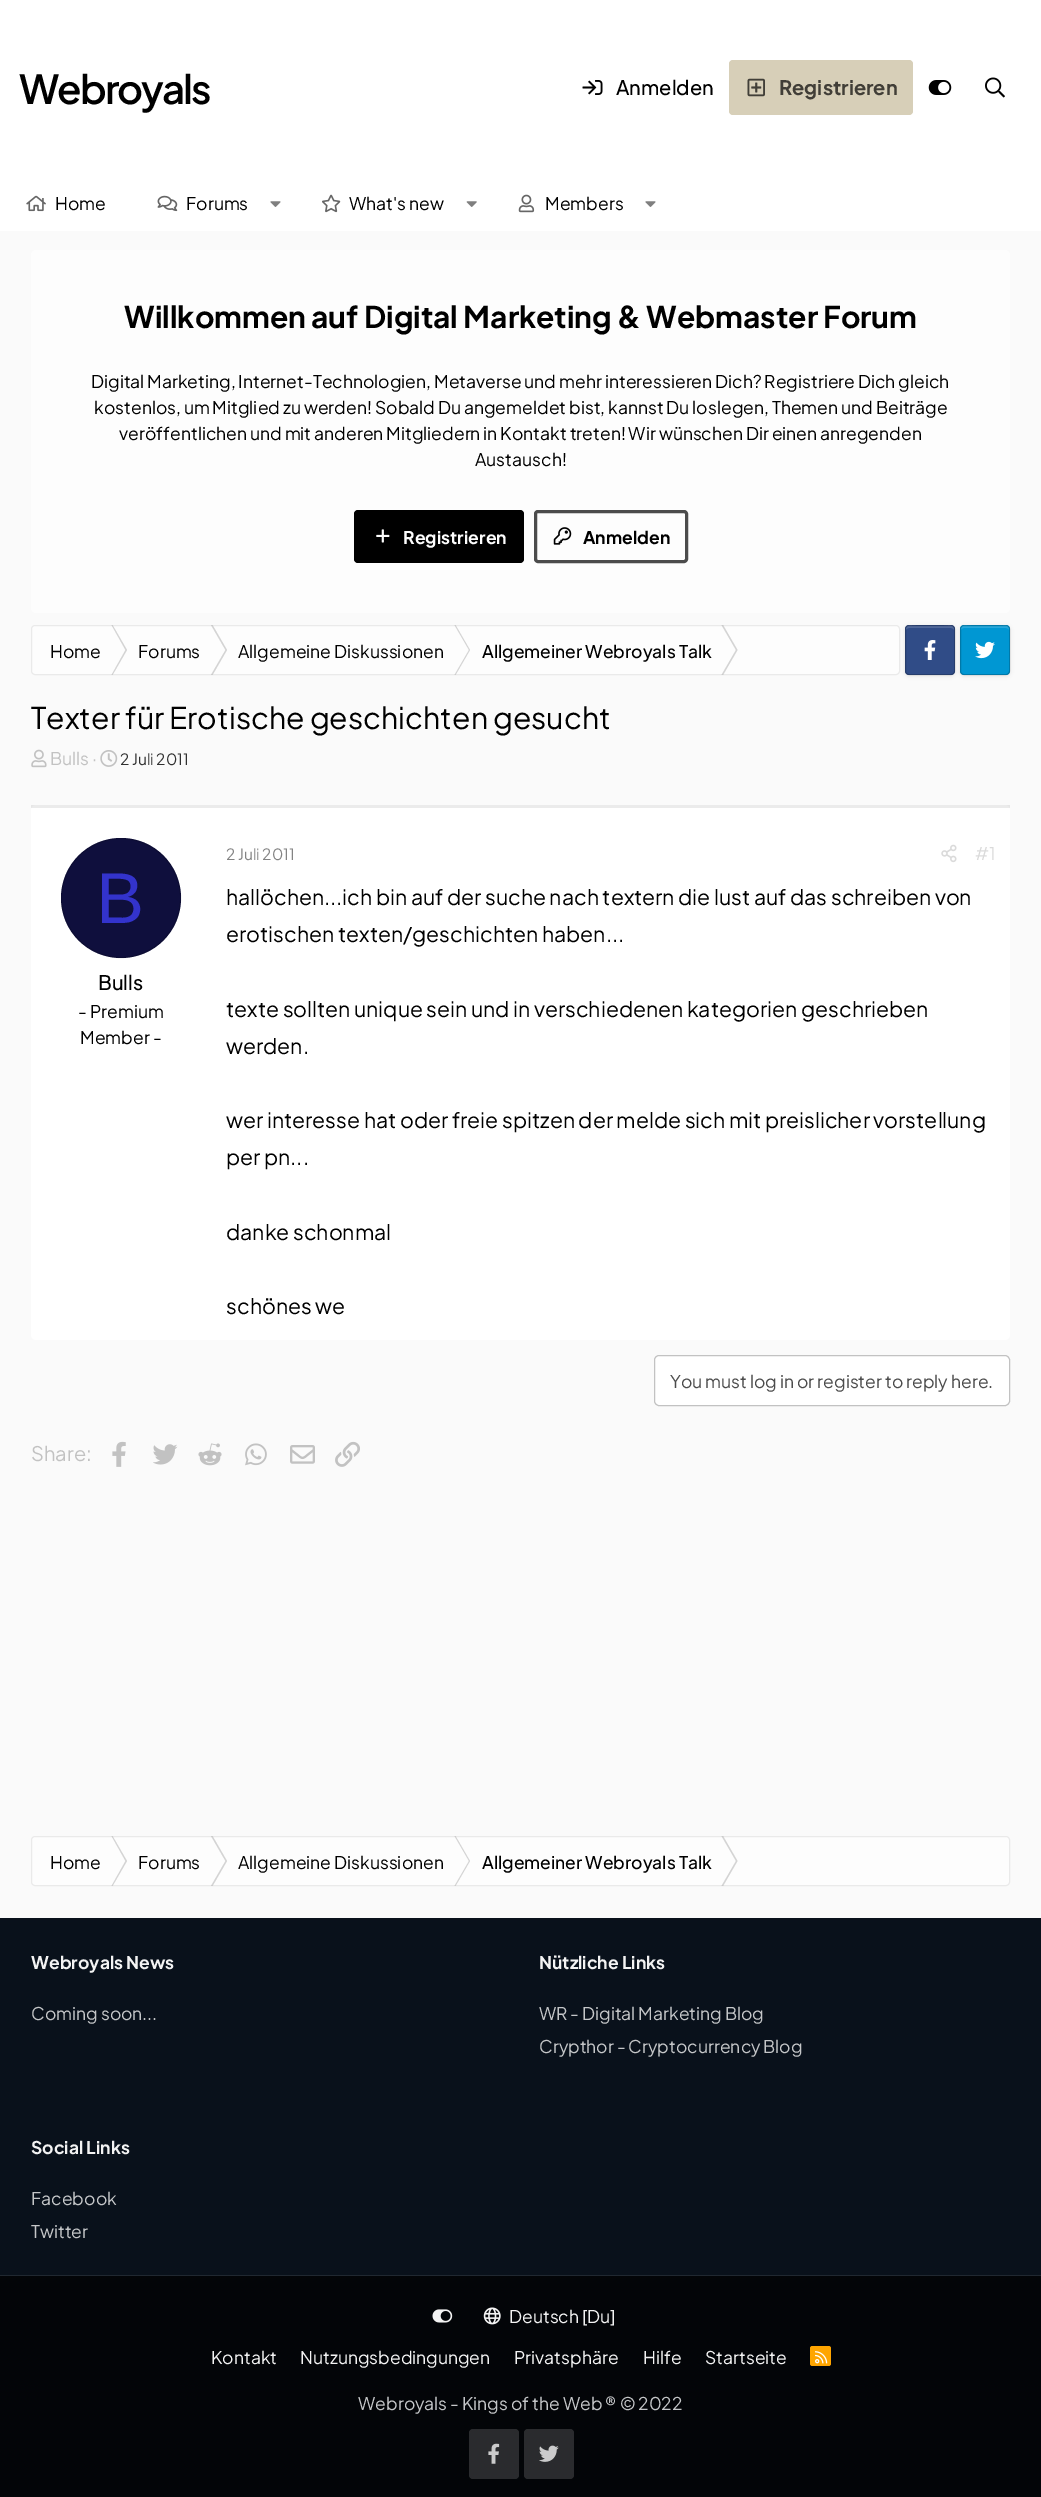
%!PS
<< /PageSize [1041 2497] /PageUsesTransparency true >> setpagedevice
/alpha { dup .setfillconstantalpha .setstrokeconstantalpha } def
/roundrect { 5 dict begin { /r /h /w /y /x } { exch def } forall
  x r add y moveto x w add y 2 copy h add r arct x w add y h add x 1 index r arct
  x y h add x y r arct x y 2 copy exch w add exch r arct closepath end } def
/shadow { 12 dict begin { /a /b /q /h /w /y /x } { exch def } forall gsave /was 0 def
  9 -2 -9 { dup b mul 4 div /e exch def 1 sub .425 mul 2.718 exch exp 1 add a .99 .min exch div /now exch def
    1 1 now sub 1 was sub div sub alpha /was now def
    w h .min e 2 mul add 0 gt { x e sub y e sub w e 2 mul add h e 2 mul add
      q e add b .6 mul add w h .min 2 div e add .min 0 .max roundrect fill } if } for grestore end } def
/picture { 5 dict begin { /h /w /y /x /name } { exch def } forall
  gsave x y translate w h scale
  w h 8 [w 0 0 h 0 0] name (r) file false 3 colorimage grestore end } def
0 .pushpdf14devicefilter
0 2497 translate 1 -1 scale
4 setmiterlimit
0.98 setgray
0 0 1041 2497 rectfill
1 setgray
0 0 1041 231 rectfill
/PlusJakartaSans-SemiBold [40 0 0 -40 0 0] selectfont
0 setgray
19 104 moveto -2 0 (Webroyals) ashow
(img1.rgb) 582 80 21 15 picture
/PlusJakartaSans-Medium [20 0 0 -20 0 0] selectfont
616 95 moveto (Anmelden) show
0.843 0.812 0.722 setrgbcolor
729 60 184 55 4 roundrect fill
(img2.rgb) 747 78 18 19 picture
/PlusJakartaSans-Bold [20 0 0 -20 0 0] selectfont
0.255 0.243 0.216 setrgbcolor
779 95 moveto (Registrieren) show
(img3.rgb) 928 80 24 15 picture
(img4.rgb) 985 77 20 21 picture
(img5.rgb) 26 195 20 17 picture
/PlusJakartaSans-Regular [17.5 0 0 -17.5 0 0] selectfont
0 setgray
55 210 moveto (Home) show
(img6.rgb) 157 195 21 17 picture
186 210 moveto (Forums) show
(img7.rgb) 270 201 11 6 picture
(img8.rgb) 322 194 19 19 picture
349 210 moveto (What's new) show
(img9.rgb) 466 201 11 6 picture
(img10.rgb) 518 194 17 19 picture
545 210 moveto (Members) show
(img7.rgb) 645 201 11 6 picture
0.992 setgray
31 250 979 363 5 roundrect fill
/PlusJakartaSans-Bold [30 0 0 -30 0 0] selectfont
0 setgray
124 328 moveto (Willkommen auf Digital Marketing & Webmaster Forum) show
/PlusJakartaSans-Regular [17.5 0 0 -17.5 0 0] selectfont
91 388 moveto (Digital Marketing, Internet-Technologien, Metaverse und mehr interessieren Dich? Registriere Dich gleich) show
94 414 moveto (kostenlos, um Mitglied zu werden! Sobald Du angemeldet bist, kannst Du loslegen, Themen und Beiträge) show
119 440 moveto (veröffentlichen und mit anderen Mitgliedern in Kontakt treten! Wir wünschen Dir einen anregenden) show
475 466 moveto (Austausch!) show
354 510 170 53 4 roundrect fill
(img11.rgb) 376 529 14 14 picture
/PlusJakartaSans-Bold [17.5 0 0 -17.5 0 0] selectfont
0.992 setgray
403 544 moveto (Registrieren) show
0.298 setgray
3 setlinewidth
535.5 511.5 151 50 2.5 roundrect stroke
(img12.rgb) 553 527 19 18 picture
0 setgray
583 544 moveto (Anmelden) show
0.992 setgray
31 625 869 50 4 roundrect fill
0.831 setgray
newpath 111.5 625 moveto 112.5 625 lineto 127 650 lineto 125.5 650 lineto closepath 125.5 650 moveto 127 650 lineto 112.5 675 lineto 111.5 675 lineto closepath fill
newpath 211 625 moveto 212.5 625 lineto 227 650 lineto 225.5 650 lineto closepath 225.5 650 moveto 227 650 lineto 212.5 675 lineto 211 675 lineto closepath fill
newpath 454.5 625 moveto 455.5 625 lineto 470 650 lineto 469 650 lineto closepath 469 650 moveto 470 650 lineto 455.5 675 lineto 454.5 675 lineto closepath fill
newpath 721.5 625 moveto 723 625 lineto 737.5 650 lineto 736 650 lineto closepath 736 650 moveto 737.5 650 lineto 723 675 lineto 721.5 675 lineto closepath fill
0.25 alpha
0.694 setgray
1 setlinewidth
31.5 625.5 868 49 3.5 roundrect stroke
/PlusJakartaSans-Regular [17.5 0 0 -17.5 0 0] selectfont
1 alpha
0 setgray
50 658 moveto (Home) show
138 658 moveto (Forums) show
238 658 moveto (Allgemeine Diskussionen) show
/PlusJakartaSans-Medium [17.5 0 0 -17.5 0 0] selectfont
482 658 moveto (Allgemeiner Webroyals Talk) show
905 626 50 50 4 2 0.1 shadow
0.188 0.298 0.529 setrgbcolor
905 625 50 50 4 roundrect fill
0.31 0.404 0.6 setrgbcolor
newpath 909 628 moveto 951 628 lineto 953 628 954 629 954 630 curveto 954 624 949 626 944 626 curveto 916 626 lineto 911 626 906 624 906 630 curveto 906 629 907 628 909 628 curveto closepath fill
(img13.rgb) 924 640 12 20 picture
0.2 alpha
0 setgray
905.5 625.5 49 49 3.5 roundrect stroke
1 alpha
960 626 50 50 4 2 0.1 shadow
0 0.592 0.827 setrgbcolor
960 625 50 50 4 roundrect fill
0.149 0.655 0.855 setrgbcolor
newpath 964 628 moveto 1006 628 lineto 1008 628 1009 629 1009 630 curveto 1009 624 1004 626 999 626 curveto 971 626 lineto 966 626 961 624 961 630 curveto 961 629 962 628 964 628 curveto closepath fill
(img14.rgb) 975 641 20 18 picture
0.2 alpha
0 setgray
960.5 625.5 49 49 3.5 roundrect stroke
/PlusJakartaSans-Regular [30 0 0 -30 0 0] selectfont
1 alpha
31 729 moveto (Texter für Erotische geschichten gesucht) show
(img15.rgb) 31 749 16 19 picture
/PlusJakartaSans-Regular [17.5 0 0 -17.5 0 0] selectfont
0.761 setgray
50 765 moveto (Bulls ·) show
(img16.rgb) 100 750 18 17 picture
/PlusJakartaSans-Regular [15.5 0 0 -15.5 0 0] selectfont
0.188 setgray
120 765 moveto (2 Juli 2011) show
1 setgray
31 805 979 535 5 roundrect fill
0.08 alpha
0 setgray
31 805 979 3 rectfill
1 alpha
0.059 0.059 0.239 setrgbcolor
newpath 121 898 60 0 360 arc closepath fill
/LiberationSans-Regular [72 0 0 -72 0 0] selectfont
0.2 0.2 0.8 setrgbcolor
96 923 moveto (B) show
0.15 alpha
0 setgray
newpath 121 898 59.5 0 360 arc closepath stroke
/PlusJakartaSans-Medium [20 0 0 -20 0 0] selectfont
1 alpha
98 990 moveto (Bulls) show
/PlusJakartaSans-Regular [17.5 0 0 -17.5 0 0] selectfont
78 1018 moveto (- Premium) show
80 1044 moveto (Member -) show
/PlusJakartaSans-Regular [15.5 0 0 -15.5 0 0] selectfont
0.514 setgray
226 860 moveto (2 Juli 2011) show
(img17.rgb) 941 844 16 19 picture
/PlusJakartaSans-Regular [17.5 0 0 -17.5 0 0] selectfont
0.855 setgray
975 860 moveto (#1) show
/PlusJakartaSans-Regular [21.25 0 0 -21.25 0 0] selectfont
0 setgray
226 905 moveto (hallöchen...ich bin auf der suche nach textern die lust auf das schreiben von) show
226 942 moveto (erotischen texten/geschichten haben...) show
226 1017 moveto (texte sollten unique sein und in verschiedenen kategorien geschrieben) show
226 1054 moveto (werden.) show
226 1128 moveto (wer interesse hat oder freie spitzen der melde sich mit preislicher vorstellung) show
226 1165 moveto (per pn...) show
226 1240 moveto (danke schonmal) show
226 1314 moveto (schönes we) show
1 setgray
654.5 1355.5 355 50 4.5 roundrect gsave fill grestore
0.761 setgray
stroke
/PlusJakartaSans-Regular [17.5 0 0 -17.5 0 0] selectfont
0.298 setgray
670 1388 moveto (You must log in or register to reply here.) show
/PlusJakartaSans-Regular [20 0 0 -20 0 0] selectfont
0.761 setgray
31 1461 moveto (Share:) show
(img18.rgb) 112 1441 14 26 picture
(img19.rgb) 153 1444 25 21 picture
(img20.rgb) 198 1443 24 23 picture
(img21.rgb) 245 1443 22 23 picture
(img22.rgb) 290 1445 25 19 picture
(img23.rgb) 335 1441 25 26 picture
0.992 setgray
31 1836 979 50 4 roundrect fill
0.831 setgray
newpath 111.5 1836 moveto 112.5 1836 lineto 127 1861 lineto 125.5 1861 lineto closepath 125.5 1861 moveto 127 1861 lineto 112.5 1886 lineto 111.5 1886 lineto closepath fill
newpath 211 1836 moveto 212.5 1836 lineto 227 1861 lineto 225.5 1861 lineto closepath 225.5 1861 moveto 227 1861 lineto 212.5 1886 lineto 211 1886 lineto closepath fill
newpath 454.5 1836 moveto 455.5 1836 lineto 470 1861 lineto 469 1861 lineto closepath 469 1861 moveto 470 1861 lineto 455.5 1886 lineto 454.5 1886 lineto closepath fill
newpath 721.5 1836 moveto 723 1836 lineto 737.5 1861 lineto 736 1861 lineto closepath 736 1861 moveto 737.5 1861 lineto 723 1886 lineto 721.5 1886 lineto closepath fill
0.25 alpha
0.694 setgray
31.5 1836.5 978 49 3.5 roundrect stroke
/PlusJakartaSans-Regular [17.5 0 0 -17.5 0 0] selectfont
1 alpha
0 setgray
50 1869 moveto (Home) show
138 1869 moveto (Forums) show
238 1869 moveto (Allgemeine Diskussionen) show
/PlusJakartaSans-Medium [17.5 0 0 -17.5 0 0] selectfont
482 1869 moveto (Allgemeiner Webroyals Talk) show
0.035 0.067 0.106 setrgbcolor
0 1918 1041 357 rectfill
0.125 0.157 0.192 setrgbcolor
0 2275 1041 1 rectfill
/PlusJakartaSans-Bold [17.5 0 0 -17.5 0 0] selectfont
0.953 setgray
31 1969 moveto (Webroyals News) show
/PlusJakartaSans-Regular [17.5 0 0 -17.5 0 0] selectfont
0.769 0.776 0.784 setrgbcolor
31 2020 moveto (Coming soon...) show
/PlusJakartaSans-Bold [17.5 0 0 -17.5 0 0] selectfont
0.953 setgray
539 1969 moveto (Nützliche Links) show
/PlusJakartaSans-Regular [17.5 0 0 -17.5 0 0] selectfont
0.769 0.776 0.784 setrgbcolor
539 2020 moveto (WR - Digital Marketing Blog) show
539 2053 moveto (Crypthor - Cryptocurrency Blog) show
/PlusJakartaSans-Bold [17.5 0 0 -17.5 0 0] selectfont
0.953 setgray
31 2154 moveto (Social Links) show
/PlusJakartaSans-Regular [17.5 0 0 -17.5 0 0] selectfont
0.769 0.776 0.784 setrgbcolor
31 2205 moveto (Facebook) show
31 2238 moveto (Twitter) show
0.012 0.02 0.031 setrgbcolor
0 2276 1041 221 rectfill
(img24.rgb) 432 2309 21 14 picture
(img25.rgb) 483 2307 18 18 picture
0.953 setgray
509 2323 moveto (Deutsch [Du]) show
211 2364 moveto (Kontakt) show
300 2364 moveto (Nutzungsbedingungen) show
514 2364 moveto (Privatsphäre) show
643 2364 moveto (Hilfe) show
705 2364 moveto (Startseite) show
1 0.647 0 setrgbcolor
810 2346 21 20 2.5 roundrect fill
(img26.rgb) 815 2351 13 13 picture
0.769 0.776 0.784 setrgbcolor
358 2410 moveto (Webroyals - Kings of the Web ® © 2022) show
(img27.rgb) 488 2443 12 21 picture
0.16 alpha
0.953 setgray
469 2429 50 50 4 roundrect fill
1 alpha
(img28.rgb) 539 2445 20 17 picture
0.16 alpha
524 2429 50 50 4 roundrect fill
.poppdf14devicefilter showpage
